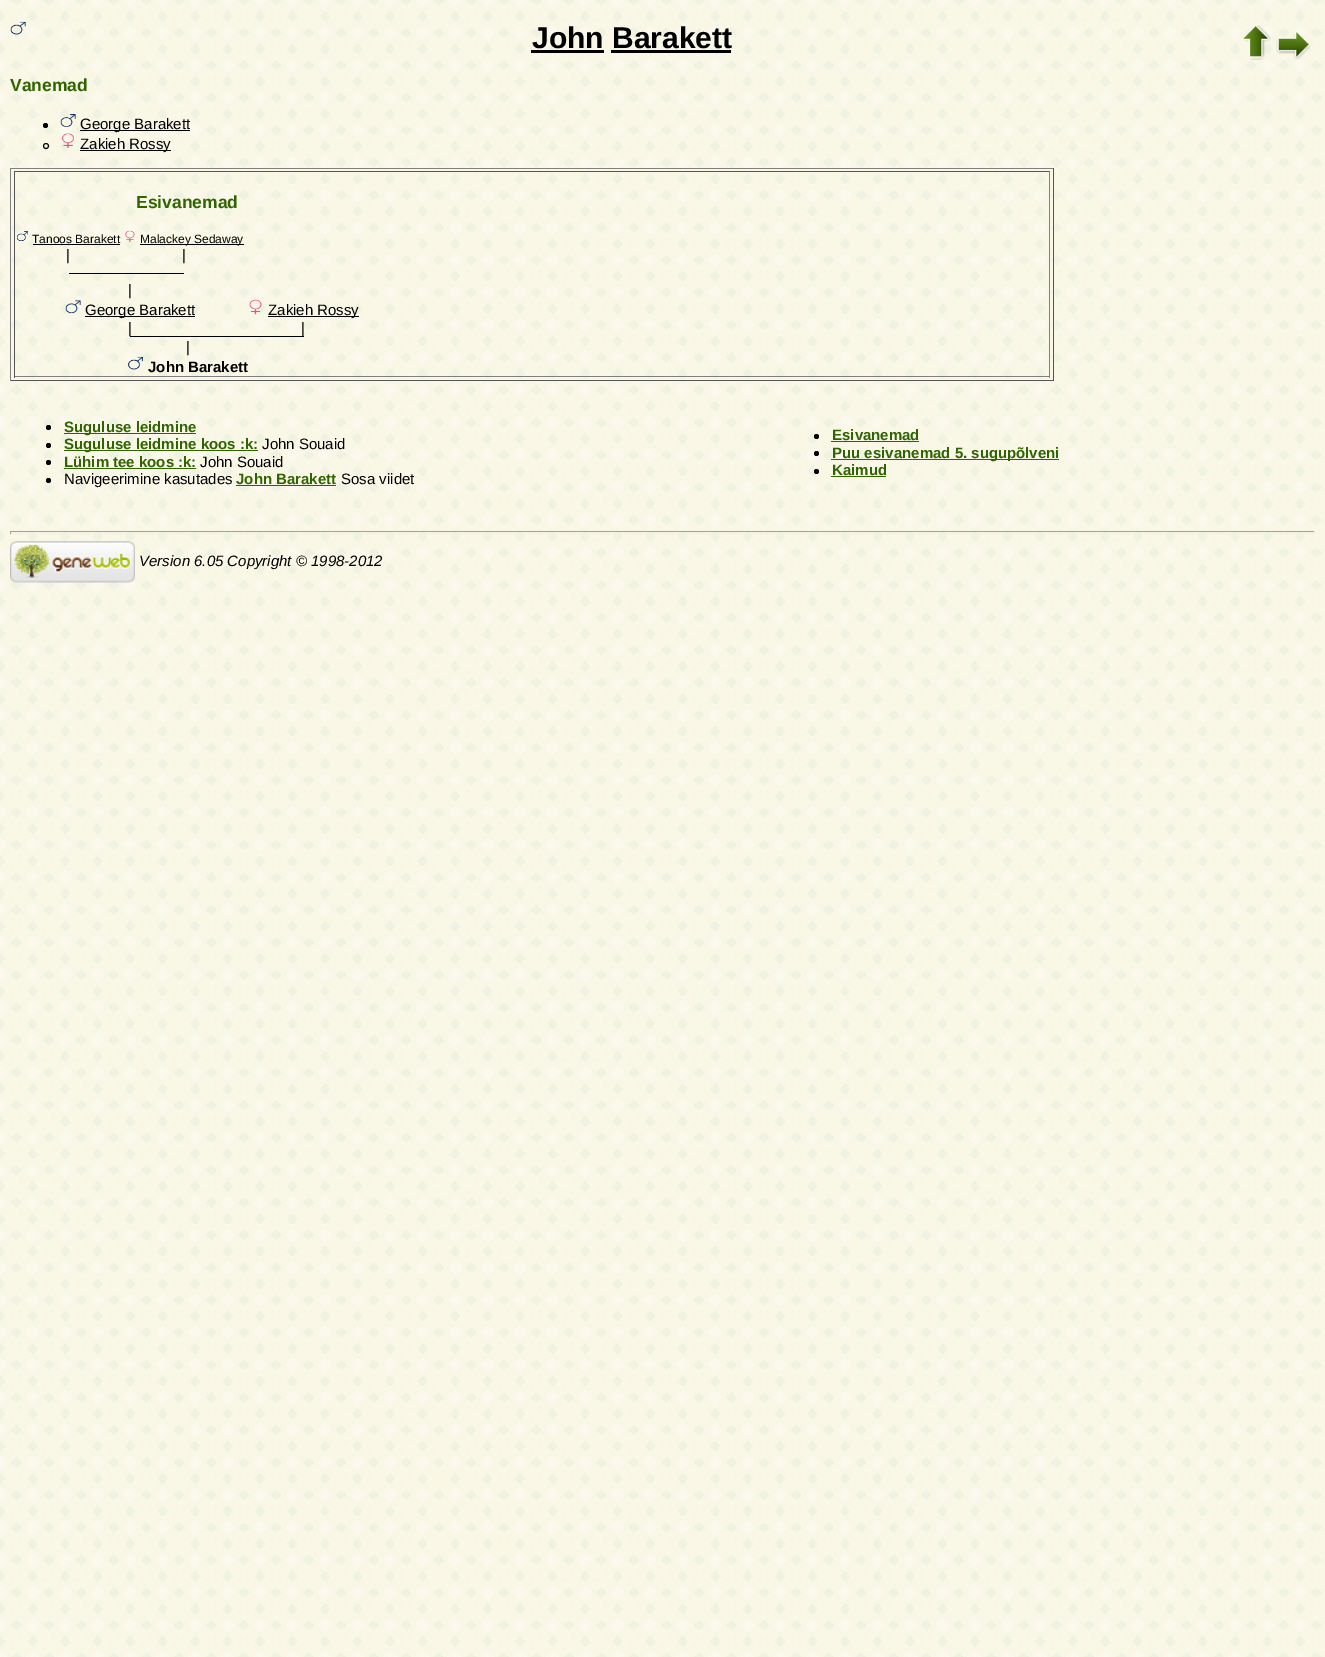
%!PS
<< /PageSize [1325 1657] >> setpagedevice
/picture { 5 dict begin { /h /w /y /x /name } { exch def } forall
  gsave x y translate w h scale
  w h 8 [w 0 0 h 0 0] name (r) file false 3 colorimage grestore end } def
0 1657 translate 1 -1 scale
4 setmiterlimit
1 setgray
0 0 1325 1657 rectfill
(img1.rgb) 0 0 1325 1657 picture
(img2.rgb) 10 21 16 14 picture
/LiberationSans-Bold [30 0 0 -30 0 0] selectfont
0 setgray
532 48 moveto (John Barakett) show
531 50 73 3 rectfill
611 50 120 3 rectfill
(img3.rgb) 1243 25 28 35 picture
(img4.rgb) 1276 31 35 29 picture
/LiberationSans-Bold [17.5 0 0 -17.5 0 0] selectfont
0.184 0.392 0 setrgbcolor
10 91 moveto (Vanemad) show
0 setgray
newpath 45.5 125.5 2.5 0 360 arc closepath fill
(img5.rgb) 60 114 16 13 picture
80 130 110 1 rectfill
/LiberationSans-Regular [15 0 0 -15 0 0] selectfont
80 129 moveto (George Barakett) show
newpath 46 146 2.5 0 360 arc closepath stroke
(img6.rgb) 62 133 12 15 picture
80 150 91 1 rectfill
80 149 moveto (Zakieh Rossy) show
0.502 setgray
10 168 1044 1 rectfill
0.333 setgray
1053 168 1 213 rectfill
10 380 1044 1 rectfill
0.502 setgray
10 168 1 213 rectfill
0.333 setgray
14 171 1036 1 rectfill
0.502 setgray
1049 171 1 207 rectfill
14 376 1036 1 rectfill
0.333 setgray
14 171 1 207 rectfill
/LiberationSans-Bold [17.5 0 0 -17.5 0 0] selectfont
0.184 0.392 0 setrgbcolor
136 208 moveto (Esivanemad) show
(img7.rgb) 17 231 11 10 picture
/LiberationSans-Regular [12 0 0 -12 0 0] selectfont
0 setgray
32 243 moveto (Tanoos Barakett) show
33 244 87 1 rectfill
(img8.rgb) 125 230 10 12 picture
140 244 104 1 rectfill
140 243 moveto (Malackey Sedaway) show
/LiberationSans-Regular [15 0 0 -15 0 0] selectfont
66 260 moveto (|) show
182 260 moveto (|) show
69 273 115 1 rectfill
128 295 moveto (|) show
(img9.rgb) 65 300 16 14 picture
85 316 110 1 rectfill
85 315 moveto (George Barakett) show
(img10.rgb) 249 299 13 16 picture
268 316 91 1 rectfill
268 315 moveto (Zakieh Rossy) show
128 333 moveto (|) show
301 333 moveto (|) show
130 336 174 1 rectfill
186 352 moveto (|) show
(img11.rgb) 128 356 15 14 picture
/LiberationSans-Bold [15 0 0 -15 0 0] selectfont
148 372 moveto (John Barakett) show
newpath 48.5 427.5 2.5 0 360 arc closepath fill
0.184 0.392 0 setrgbcolor
64 433 132 1 rectfill
64 432 moveto (Suguluse leidmine) show
0 setgray
newpath 48.5 445.5 2.5 0 360 arc closepath fill
0.184 0.392 0 setrgbcolor
64 450 194 1 rectfill
64 449 moveto (Suguluse leidmine koos :k:) show
/LiberationSans-Regular [15 0 0 -15 0 0] selectfont
0 setgray
262 449 moveto (John Souaid) show
newpath 48.5 462.5 2.5 0 360 arc closepath fill
/LiberationSans-Bold [15 0 0 -15 0 0] selectfont
0.184 0.392 0 setrgbcolor
64 467 moveto (Lühim tee koos :k:) show
64 468 132 1 rectfill
/LiberationSans-Regular [15 0 0 -15 0 0] selectfont
0 setgray
200 467 moveto (John Souaid) show
newpath 48.5 480.5 2.5 0 360 arc closepath fill
64 484 moveto (Navigeerimine kasutades) show
/LiberationSans-Bold [15 0 0 -15 0 0] selectfont
0.184 0.392 0 setrgbcolor
236 484 moveto (John Barakett) show
236 485 100 1 rectfill
/LiberationSans-Regular [15 0 0 -15 0 0] selectfont
0 setgray
341 484 moveto (Sosa viidet) show
newpath 816.5 436.5 2.5 0 360 arc closepath fill
/LiberationSans-Bold [15 0 0 -15 0 0] selectfont
0.184 0.392 0 setrgbcolor
832 440 moveto (Esivanemad) show
831 441 88 1 rectfill
0 setgray
newpath 816.5 453.5 2.5 0 360 arc closepath fill
0.184 0.392 0 setrgbcolor
831 459 228 1 rectfill
832 458 moveto (Puu esivanemad 5. sugupõlveni) show
0 setgray
newpath 816.5 471.5 2.5 0 360 arc closepath fill
0.184 0.392 0 setrgbcolor
832 475 moveto (Kaimud) show
831 476 55 1 rectfill
0.624 setgray
10 531 1305 1 rectfill
0.933 setgray
1314 531 1 3 rectfill
10 533 1305 1 rectfill
0.624 setgray
10 531 1 3 rectfill
(img12.rgb) 10 541 125 42 picture
/LiberationSans-Italic [15 0 0 -15 0 0] selectfont
0 setgray
139 566 moveto (Version 6.05 Copyright © 1998-2012) show
showpage
